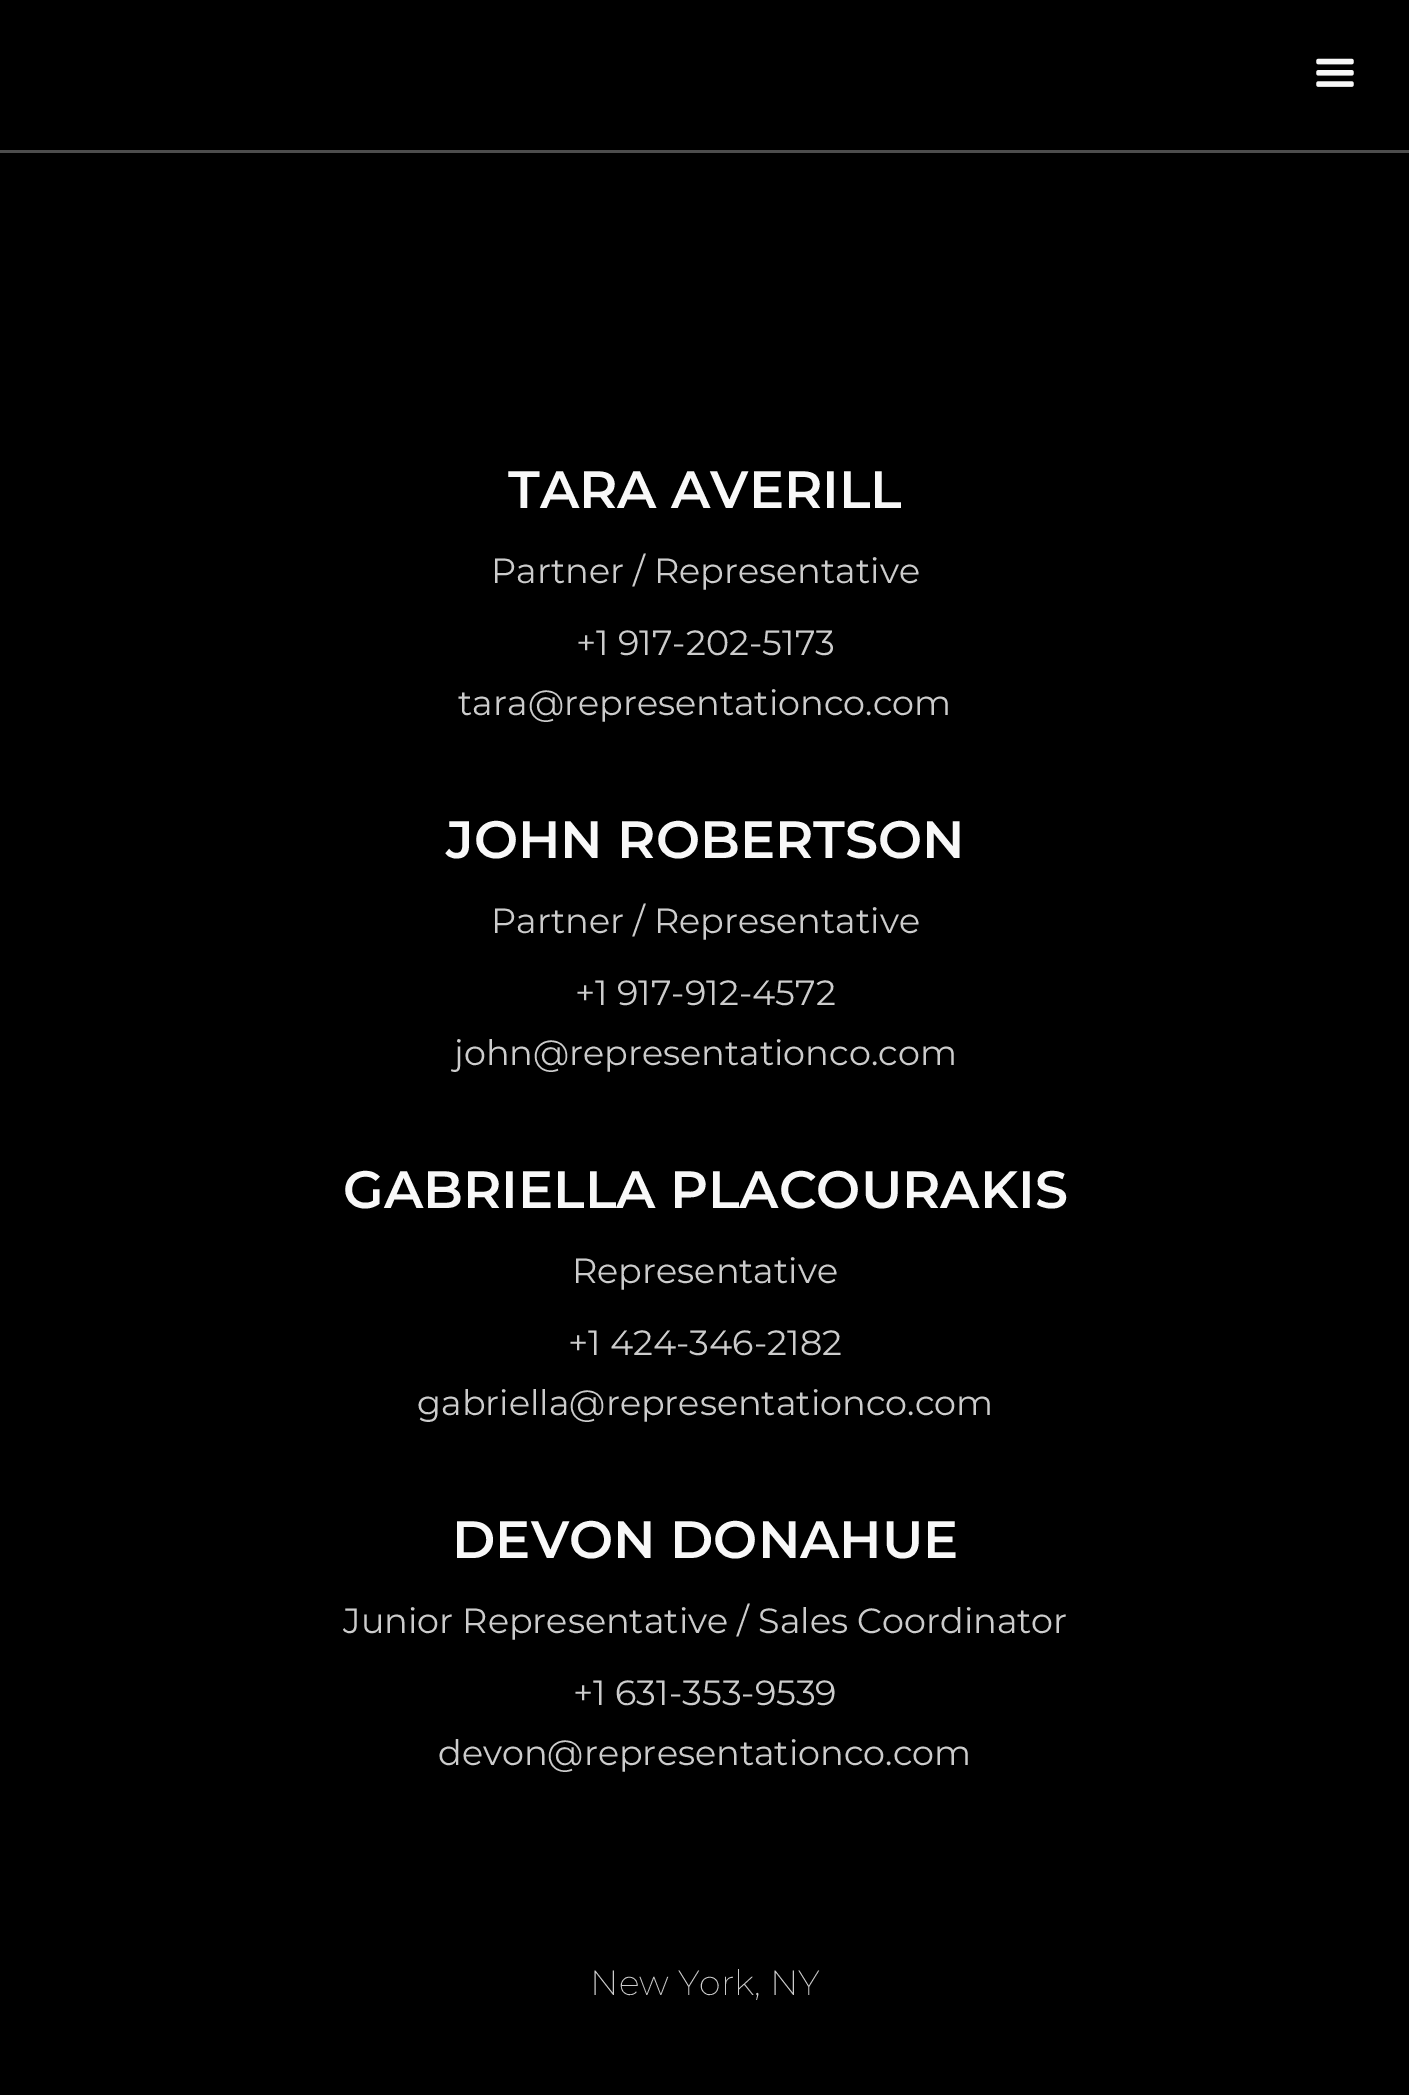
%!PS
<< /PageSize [1409 2095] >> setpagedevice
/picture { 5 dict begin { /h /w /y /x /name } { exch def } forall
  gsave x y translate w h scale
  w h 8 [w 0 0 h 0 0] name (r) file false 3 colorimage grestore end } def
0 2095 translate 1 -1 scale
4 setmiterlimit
0 setgray
0 0 1409 2095 rectfill
0.302 setgray
0 150 1409 3 rectfill
(img1.rgb) 1316 58 38 29 picture
/Montserrat-SemiBold [52.5 0 0 -52.5 0 0] selectfont
0.973 setgray
508 508 moveto (TARA AVERILL) show
/Montserrat-Regular [35 0 0 -35 0 0] selectfont
0.8 setgray
491 583 moveto (Partner / Representative) show
576 655 moveto (+1 917-202-5173) show
458 715 moveto (tara@representationco.com) show
/Montserrat-SemiBold [52.5 0 0 -52.5 0 0] selectfont
0.973 setgray
446 858 moveto (JOHN ROBERTSON) show
/Montserrat-Regular [35 0 0 -35 0 0] selectfont
0.8 setgray
491 933 moveto (Partner / Representative) show
575 1005 moveto (+1 917-912-4572) show
454 1065 moveto (john@representationco.com) show
/Montserrat-SemiBold [52.5 0 0 -52.5 0 0] selectfont
0.973 setgray
343 1208 moveto (GABRIELLA PLACOURAKIS) show
/Montserrat-Regular [35 0 0 -35 0 0] selectfont
0.8 setgray
572 1283 moveto (Representative) show
568 1355 moveto (+1 424-346-2182) show
417 1415 moveto (gabriella@representationco.com) show
/Montserrat-SemiBold [52.5 0 0 -52.5 0 0] selectfont
0.973 setgray
452 1558 moveto (DEVON DONAHUE) show
/Montserrat-Regular [35 0 0 -35 0 0] selectfont
0.8 setgray
343 1633 moveto (Junior Representative / Sales Coordinator) show
573 1705 moveto (+1 631-353-9539) show
438 1765 moveto (devon@representationco.com) show
/Montserrat-ExtraLight [35 0 0 -35 0 0] selectfont
590 1995 moveto (New York, NY) show
showpage
